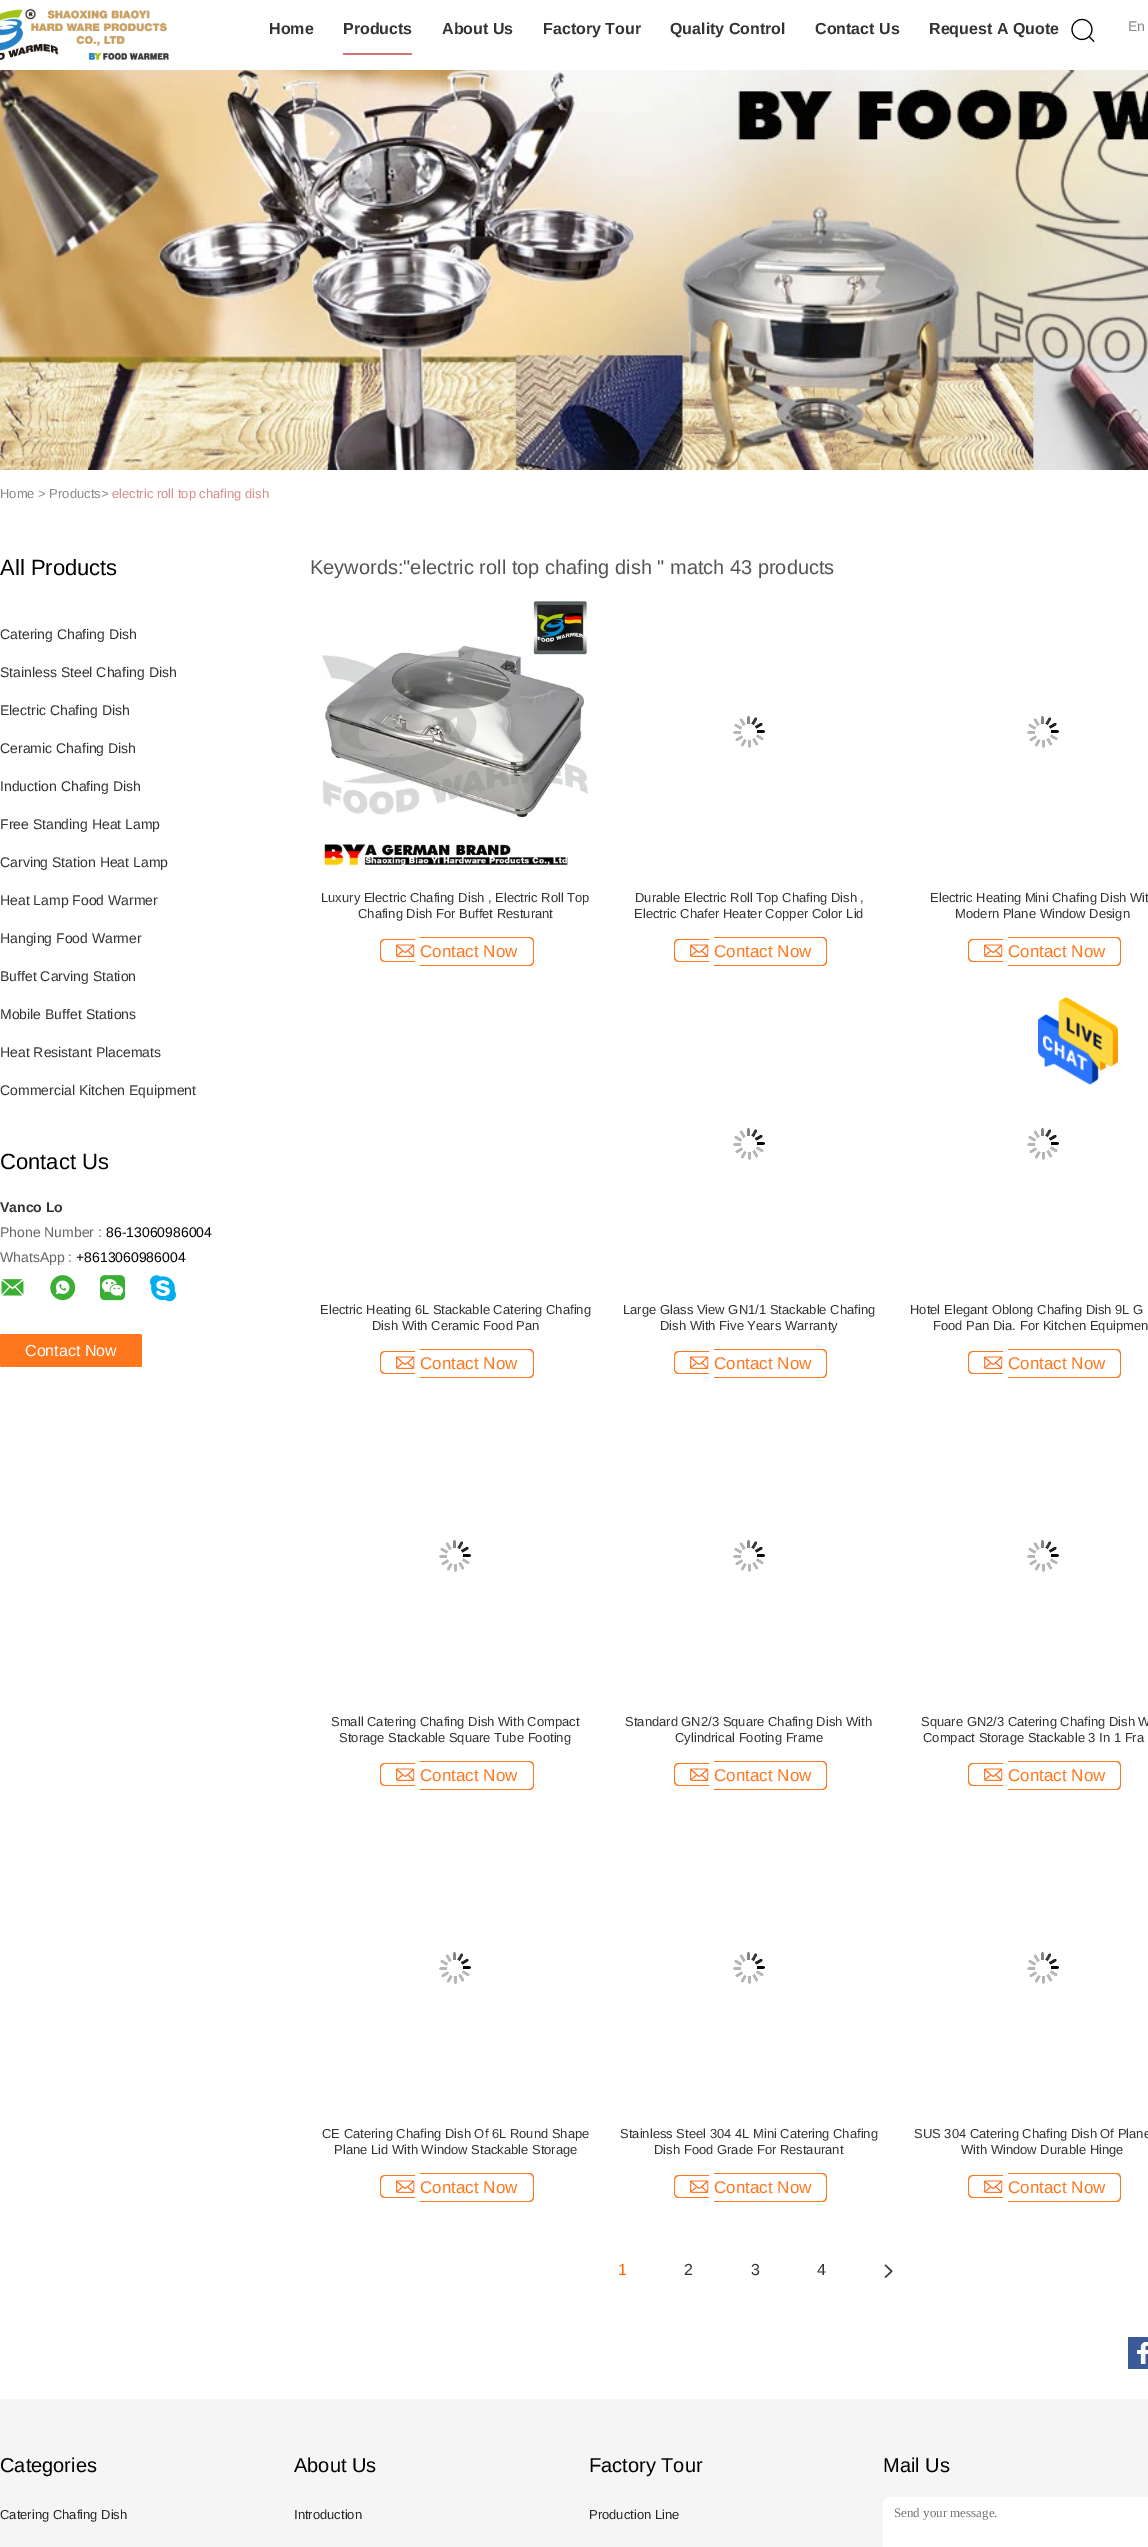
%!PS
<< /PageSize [1148 2547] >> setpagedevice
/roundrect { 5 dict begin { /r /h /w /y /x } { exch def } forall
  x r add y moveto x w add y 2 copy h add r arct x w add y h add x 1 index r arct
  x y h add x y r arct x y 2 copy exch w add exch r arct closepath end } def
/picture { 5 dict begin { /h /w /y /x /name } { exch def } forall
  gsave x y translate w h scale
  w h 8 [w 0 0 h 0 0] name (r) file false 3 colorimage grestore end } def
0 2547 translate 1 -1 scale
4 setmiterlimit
1 setgray
0 0 1148 2547 rectfill
(img1.rgb) 0 8 169 53 picture
/LiberationSans-Bold [16 0 0 -16 0 0] selectfont
0.2 setgray
269 34 moveto (Home) show
0.82 0.455 0.455 setrgbcolor
343 53 69 2 rectfill
0.2 setgray
343 34 moveto (Products) show
442 34 moveto (About Us) show
543 34 moveto (Factory Tour) show
670 34 moveto (Quality Control) show
815 34 moveto (Contact Us) show
929 34 moveto (Request A Quote) show
(img2.rgb) 1071 18 24 25 picture
/LiberationSans-Regular [14 0 0 -14 0 0] selectfont
0.533 setgray
1128 31 moveto (En) show
(img3.rgb) 0 70 1148 400 picture
/LiberationSans-Regular [13 0 0 -13 0 0] selectfont
0 498 moveto (Home > Products>) show
0.847 0.553 0.553 setrgbcolor
112 498 moveto (electric roll top chafing dish) show
/LiberationSans-Regular [22 0 0 -22 0 0] selectfont
0 setgray
0 575 moveto (All Products) show
/LiberationSans-Regular [14 0 0 -14 0 0] selectfont
0.2 setgray
0 639 moveto (Catering Chafing Dish) show
0 677 moveto (Stainless Steel Chafing Dish) show
0 715 moveto (Electric Chafing Dish) show
0 753 moveto (Ceramic Chafing Dish) show
0 791 moveto (Induction Chafing Dish) show
0 829 moveto (Free Standing Heat Lamp) show
0 867 moveto (Carving Station Heat Lamp) show
0 905 moveto (Heat Lamp Food Warmer) show
0 943 moveto (Hanging Food Warmer) show
0 981 moveto (Buffet Carving Station) show
0 1019 moveto (Mobile Buffet Stations) show
0 1057 moveto (Heat Resistant Placemats) show
0 1095 moveto (Commercial Kitchen Equipment) show
/LiberationSans-Regular [22 0 0 -22 0 0] selectfont
0 setgray
0 1169 moveto (Contact Us) show
/LiberationSans-Bold [14 0 0 -14 0 0] selectfont
0.2 setgray
0 1212 moveto (Vanco Lo) show
/LiberationSans-Regular [14 0 0 -14 0 0] selectfont
0.4 setgray
0 1237 moveto (Phone Number :) show
0 setgray
106 1237 moveto (86-13060986004) show
0.4 setgray
0 1262 moveto (WhatsApp :) show
0 setgray
76 1262 moveto (+8613060986004) show
(img4.rgb) 1 1279 23 17 picture
(img5.rgb) 50 1275 26 26 picture
(img6.rgb) 100 1275 25 26 picture
(img7.rgb) 150 1275 26 27 picture
1 0.467 0.11 setrgbcolor
0 1334 142 33 2 roundrect fill
/LiberationSans-Regular [16 0 0 -16 0 0] selectfont
1 setgray
25 1356 moveto (Contact Now) show
/LiberationSans-Regular [20 0 0 -20 0 0] selectfont
0.333 setgray
310 574 moveto (Keywords:"electric roll top chafing dish " match 43 products) show
(img8.rgb) 320 600 270 267 picture
/LiberationSans-Regular [13 0 0 -13 0 0] selectfont
0.2 setgray
321 902 moveto (Luxury Electric Chafing Dish , Electric Roll Top) show
358 918 moveto (Chafing Dish For Buffet Resturant) show
1 0.467 0.11 setrgbcolor
newpath 385 939 moveto 415 939 lineto 415 962 lineto 385 962 lineto 382 962 380 960 380 957 curveto 380 944 lineto 380 941 382 939 385 939 curveto closepath 385 940 moveto 415 940 lineto 415 961 lineto 385 961 lineto 383 961 381 959 381 957 curveto 381 944 lineto 381 942 383 940 385 940 curveto closepath eofill
newpath 420 937 moveto 529 937 lineto 532 937 534 939 534 942 curveto 534 961 lineto 534 964 532 966 529 966 curveto 420 966 lineto closepath 420 938 moveto 529 938 lineto 531 938 533 940 533 942 curveto 533 961 lineto 533 963 531 965 529 965 curveto 420 965 lineto closepath eofill
(img9.rgb) 396 944 19 13 picture
/LiberationSans-Regular [17 0 0 -17 0 0] selectfont
420 957 moveto (Contact Now) show
(img10.rgb) 733 716 32 32 picture
/LiberationSans-Regular [13 0 0 -13 0 0] selectfont
0.2 setgray
635 902 moveto (Durable Electric Roll Top Chafing Dish ,) show
634 918 moveto (Electric Chafer Heater Copper Color Lid) show
1 0.467 0.11 setrgbcolor
newpath 679 939 moveto 709 939 lineto 709 962 lineto 679 962 lineto 676 962 674 960 674 957 curveto 674 944 lineto 674 941 676 939 679 939 curveto closepath 679 940 moveto 709 940 lineto 709 961 lineto 679 961 lineto 677 961 675 959 675 957 curveto 675 944 lineto 675 942 677 940 679 940 curveto closepath eofill
newpath 714 937 moveto 822 937 lineto 825 937 827 939 827 942 curveto 827 961 lineto 827 964 825 966 822 966 curveto 714 966 lineto closepath 714 938 moveto 822 938 lineto 824 938 826 940 826 942 curveto 826 961 lineto 826 963 824 965 822 965 curveto 714 965 lineto closepath eofill
(img9.rgb) 690 944 19 13 picture
/LiberationSans-Regular [17 0 0 -17 0 0] selectfont
714 957 moveto (Contact Now) show
(img10.rgb) 1027 716 32 32 picture
/LiberationSans-Regular [13 0 0 -13 0 0] selectfont
0.2 setgray
930 902 moveto (Electric Heating Mini Chafing Dish Wit) show
955 918 moveto (Modern Plane Window Design) show
1 0.467 0.11 setrgbcolor
newpath 973 939 moveto 1003 939 lineto 1003 962 lineto 973 962 lineto 970 962 968 960 968 957 curveto 968 944 lineto 968 941 970 939 973 939 curveto closepath 973 940 moveto 1003 940 lineto 1003 961 lineto 973 961 lineto 971 961 969 959 969 957 curveto 969 944 lineto 969 942 971 940 973 940 curveto closepath eofill
newpath 1008 937 moveto 1116 937 lineto 1119 937 1121 939 1121 942 curveto 1121 961 lineto 1121 964 1119 966 1116 966 curveto 1008 966 lineto closepath 1008 938 moveto 1116 938 lineto 1118 938 1120 940 1120 942 curveto 1120 961 lineto 1120 963 1118 965 1116 965 curveto 1008 965 lineto closepath eofill
(img9.rgb) 984 944 19 13 picture
/LiberationSans-Regular [17 0 0 -17 0 0] selectfont
1008 957 moveto (Contact Now) show
/LiberationSans-Regular [13 0 0 -13 0 0] selectfont
0.2 setgray
320 1314 moveto (Electric Heating 6L Stackable Catering Chafing) show
372 1330 moveto (Dish With Ceramic Food Pan) show
1 0.467 0.11 setrgbcolor
newpath 385 1351 moveto 415 1351 lineto 415 1374 lineto 385 1374 lineto 382 1374 380 1372 380 1369 curveto 380 1356 lineto 380 1353 382 1351 385 1351 curveto closepath 385 1352 moveto 415 1352 lineto 415 1373 lineto 385 1373 lineto 383 1373 381 1371 381 1369 curveto 381 1356 lineto 381 1354 383 1352 385 1352 curveto closepath eofill
newpath 420 1349 moveto 529 1349 lineto 532 1349 534 1351 534 1354 curveto 534 1373 lineto 534 1376 532 1378 529 1378 curveto 420 1378 lineto closepath 420 1350 moveto 529 1350 lineto 531 1350 533 1352 533 1354 curveto 533 1373 lineto 533 1375 531 1377 529 1377 curveto 420 1377 lineto closepath eofill
(img9.rgb) 396 1356 19 13 picture
/LiberationSans-Regular [17 0 0 -17 0 0] selectfont
420 1369 moveto (Contact Now) show
(img10.rgb) 733 1128 32 32 picture
/LiberationSans-Regular [13 0 0 -13 0 0] selectfont
0.2 setgray
623 1314 moveto (Large Glass View GN1/1 Stackable Chafing) show
660 1330 moveto (Dish With Five Years Warranty) show
1 0.467 0.11 setrgbcolor
newpath 679 1351 moveto 709 1351 lineto 709 1374 lineto 679 1374 lineto 676 1374 674 1372 674 1369 curveto 674 1356 lineto 674 1353 676 1351 679 1351 curveto closepath 679 1352 moveto 709 1352 lineto 709 1373 lineto 679 1373 lineto 677 1373 675 1371 675 1369 curveto 675 1356 lineto 675 1354 677 1352 679 1352 curveto closepath eofill
newpath 714 1349 moveto 822 1349 lineto 825 1349 827 1351 827 1354 curveto 827 1373 lineto 827 1376 825 1378 822 1378 curveto 714 1378 lineto closepath 714 1350 moveto 822 1350 lineto 824 1350 826 1352 826 1354 curveto 826 1373 lineto 826 1375 824 1377 822 1377 curveto 714 1377 lineto closepath eofill
(img9.rgb) 690 1356 19 13 picture
/LiberationSans-Regular [17 0 0 -17 0 0] selectfont
714 1369 moveto (Contact Now) show
(img10.rgb) 1027 1128 32 32 picture
/LiberationSans-Regular [13 0 0 -13 0 0] selectfont
0.2 setgray
910 1314 moveto (Hotel Elegant Oblong Chafing Dish 9L G) show
933 1330 moveto (Food Pan Dia. For Kitchen Equipmen) show
1 0.467 0.11 setrgbcolor
newpath 973 1351 moveto 1003 1351 lineto 1003 1374 lineto 973 1374 lineto 970 1374 968 1372 968 1369 curveto 968 1356 lineto 968 1353 970 1351 973 1351 curveto closepath 973 1352 moveto 1003 1352 lineto 1003 1373 lineto 973 1373 lineto 971 1373 969 1371 969 1369 curveto 969 1356 lineto 969 1354 971 1352 973 1352 curveto closepath eofill
newpath 1008 1349 moveto 1116 1349 lineto 1119 1349 1121 1351 1121 1354 curveto 1121 1373 lineto 1121 1376 1119 1378 1116 1378 curveto 1008 1378 lineto closepath 1008 1350 moveto 1116 1350 lineto 1118 1350 1120 1352 1120 1354 curveto 1120 1373 lineto 1120 1375 1118 1377 1116 1377 curveto 1008 1377 lineto closepath eofill
(img9.rgb) 984 1356 19 13 picture
/LiberationSans-Regular [17 0 0 -17 0 0] selectfont
1008 1369 moveto (Contact Now) show
(img10.rgb) 439 1540 32 32 picture
/LiberationSans-Regular [13 0 0 -13 0 0] selectfont
0.2 setgray
331 1726 moveto (Small Catering Chafing Dish With Compact) show
339 1742 moveto (Storage Stackable Square Tube Footing) show
1 0.467 0.11 setrgbcolor
newpath 385 1763 moveto 415 1763 lineto 415 1786 lineto 385 1786 lineto 382 1786 380 1784 380 1781 curveto 380 1768 lineto 380 1765 382 1763 385 1763 curveto closepath 385 1764 moveto 415 1764 lineto 415 1785 lineto 385 1785 lineto 383 1785 381 1783 381 1781 curveto 381 1768 lineto 381 1766 383 1764 385 1764 curveto closepath eofill
newpath 420 1761 moveto 529 1761 lineto 532 1761 534 1763 534 1766 curveto 534 1785 lineto 534 1788 532 1790 529 1790 curveto 420 1790 lineto closepath 420 1762 moveto 529 1762 lineto 531 1762 533 1764 533 1766 curveto 533 1785 lineto 533 1787 531 1789 529 1789 curveto 420 1789 lineto closepath eofill
(img9.rgb) 396 1768 19 13 picture
/LiberationSans-Regular [17 0 0 -17 0 0] selectfont
420 1781 moveto (Contact Now) show
(img10.rgb) 733 1540 32 32 picture
/LiberationSans-Regular [13 0 0 -13 0 0] selectfont
0.2 setgray
625 1726 moveto (Standard GN2/3 Square Chafing Dish With) show
675 1742 moveto (Cylindrical Footing Frame) show
1 0.467 0.11 setrgbcolor
newpath 679 1763 moveto 709 1763 lineto 709 1786 lineto 679 1786 lineto 676 1786 674 1784 674 1781 curveto 674 1768 lineto 674 1765 676 1763 679 1763 curveto closepath 679 1764 moveto 709 1764 lineto 709 1785 lineto 679 1785 lineto 677 1785 675 1783 675 1781 curveto 675 1768 lineto 675 1766 677 1764 679 1764 curveto closepath eofill
newpath 714 1761 moveto 822 1761 lineto 825 1761 827 1763 827 1766 curveto 827 1785 lineto 827 1788 825 1790 822 1790 curveto 714 1790 lineto closepath 714 1762 moveto 822 1762 lineto 824 1762 826 1764 826 1766 curveto 826 1785 lineto 826 1787 824 1789 822 1789 curveto 714 1789 lineto closepath eofill
(img9.rgb) 690 1768 19 13 picture
/LiberationSans-Regular [17 0 0 -17 0 0] selectfont
714 1781 moveto (Contact Now) show
(img10.rgb) 1027 1540 32 32 picture
/LiberationSans-Regular [13 0 0 -13 0 0] selectfont
0.2 setgray
921 1726 moveto (Square GN2/3 Catering Chafing Dish W) show
923 1742 moveto (Compact Storage Stackable 3 In 1 Fra) show
1 0.467 0.11 setrgbcolor
newpath 973 1763 moveto 1003 1763 lineto 1003 1786 lineto 973 1786 lineto 970 1786 968 1784 968 1781 curveto 968 1768 lineto 968 1765 970 1763 973 1763 curveto closepath 973 1764 moveto 1003 1764 lineto 1003 1785 lineto 973 1785 lineto 971 1785 969 1783 969 1781 curveto 969 1768 lineto 969 1766 971 1764 973 1764 curveto closepath eofill
newpath 1008 1761 moveto 1116 1761 lineto 1119 1761 1121 1763 1121 1766 curveto 1121 1785 lineto 1121 1788 1119 1790 1116 1790 curveto 1008 1790 lineto closepath 1008 1762 moveto 1116 1762 lineto 1118 1762 1120 1764 1120 1766 curveto 1120 1785 lineto 1120 1787 1118 1789 1116 1789 curveto 1008 1789 lineto closepath eofill
(img9.rgb) 984 1768 19 13 picture
/LiberationSans-Regular [17 0 0 -17 0 0] selectfont
1008 1781 moveto (Contact Now) show
(img10.rgb) 439 1952 32 32 picture
/LiberationSans-Regular [13 0 0 -13 0 0] selectfont
0.2 setgray
322 2138 moveto (CE Catering Chafing Dish Of 6L Round Shape) show
334 2154 moveto (Plane Lid With Window Stackable Storage) show
1 0.467 0.11 setrgbcolor
newpath 385 2175 moveto 415 2175 lineto 415 2198 lineto 385 2198 lineto 382 2198 380 2196 380 2193 curveto 380 2180 lineto 380 2177 382 2175 385 2175 curveto closepath 385 2176 moveto 415 2176 lineto 415 2197 lineto 385 2197 lineto 383 2197 381 2195 381 2193 curveto 381 2180 lineto 381 2178 383 2176 385 2176 curveto closepath eofill
newpath 420 2173 moveto 529 2173 lineto 532 2173 534 2175 534 2178 curveto 534 2197 lineto 534 2200 532 2202 529 2202 curveto 420 2202 lineto closepath 420 2174 moveto 529 2174 lineto 531 2174 533 2176 533 2178 curveto 533 2197 lineto 533 2199 531 2201 529 2201 curveto 420 2201 lineto closepath eofill
(img9.rgb) 396 2180 19 13 picture
/LiberationSans-Regular [17 0 0 -17 0 0] selectfont
420 2193 moveto (Contact Now) show
(img10.rgb) 733 1952 32 32 picture
/LiberationSans-Regular [13 0 0 -13 0 0] selectfont
0.2 setgray
620 2138 moveto (Stainless Steel 304 4L Mini Catering Chafing) show
654 2154 moveto (Dish Food Grade For Restaurant) show
1 0.467 0.11 setrgbcolor
newpath 679 2175 moveto 709 2175 lineto 709 2198 lineto 679 2198 lineto 676 2198 674 2196 674 2193 curveto 674 2180 lineto 674 2177 676 2175 679 2175 curveto closepath 679 2176 moveto 709 2176 lineto 709 2197 lineto 679 2197 lineto 677 2197 675 2195 675 2193 curveto 675 2180 lineto 675 2178 677 2176 679 2176 curveto closepath eofill
newpath 714 2173 moveto 822 2173 lineto 825 2173 827 2175 827 2178 curveto 827 2197 lineto 827 2200 825 2202 822 2202 curveto 714 2202 lineto closepath 714 2174 moveto 822 2174 lineto 824 2174 826 2176 826 2178 curveto 826 2197 lineto 826 2199 824 2201 822 2201 curveto 714 2201 lineto closepath eofill
(img9.rgb) 690 2180 19 13 picture
/LiberationSans-Regular [17 0 0 -17 0 0] selectfont
714 2193 moveto (Contact Now) show
(img10.rgb) 1027 1952 32 32 picture
/LiberationSans-Regular [13 0 0 -13 0 0] selectfont
0.2 setgray
914 2138 moveto (SUS 304 Catering Chafing Dish Of Plane) show
961 2154 moveto (With Window Durable Hinge) show
1 0.467 0.11 setrgbcolor
newpath 973 2175 moveto 1003 2175 lineto 1003 2198 lineto 973 2198 lineto 970 2198 968 2196 968 2193 curveto 968 2180 lineto 968 2177 970 2175 973 2175 curveto closepath 973 2176 moveto 1003 2176 lineto 1003 2197 lineto 973 2197 lineto 971 2197 969 2195 969 2193 curveto 969 2180 lineto 969 2178 971 2176 973 2176 curveto closepath eofill
newpath 1008 2173 moveto 1116 2173 lineto 1119 2173 1121 2175 1121 2178 curveto 1121 2197 lineto 1121 2200 1119 2202 1116 2202 curveto 1008 2202 lineto closepath 1008 2174 moveto 1116 2174 lineto 1118 2174 1120 2176 1120 2178 curveto 1120 2197 lineto 1120 2199 1118 2201 1116 2201 curveto 1008 2201 lineto closepath eofill
(img9.rgb) 984 2180 19 13 picture
/LiberationSans-Regular [17 0 0 -17 0 0] selectfont
1008 2193 moveto (Contact Now) show
/LiberationSans-Regular [16 0 0 -16 0 0] selectfont
1 0.4 0 setrgbcolor
618 2275 moveto (1) show
0.2 setgray
684 2275 moveto (2) show
751 2275 moveto (3) show
817 2275 moveto (4) show
(img11.rgb) 884 2264 9 14 picture
(img12.rgb) 1038 997 80 88 picture
(img13.rgb) 1128 2337 20 32 picture
0.961 setgray
0 2399 1148 148 rectfill
/LiberationSans-Regular [20 0 0 -20 0 0] selectfont
0 setgray
0 2472 moveto (Categories) show
/LiberationSans-Regular [13 0 0 -13 0 0] selectfont
0.149 setgray
0 2519 moveto (Catering Chafing Dish) show
/LiberationSans-Regular [20 0 0 -20 0 0] selectfont
0 setgray
294 2472 moveto (About Us) show
/LiberationSans-Regular [13 0 0 -13 0 0] selectfont
0.149 setgray
294 2519 moveto (Introduction) show
/LiberationSans-Regular [20 0 0 -20 0 0] selectfont
0 setgray
589 2472 moveto (Factory Tour) show
/LiberationSans-Regular [13 0 0 -13 0 0] selectfont
0.149 setgray
589 2519 moveto (Production Line) show
/LiberationSans-Regular [20 0 0 -20 0 0] selectfont
0 setgray
883 2472 moveto (Mail Us) show
1 setgray
883 2497 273 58 8 roundrect fill
/LiberationSerif-Regular [13 0 0 -13 0 0] selectfont
0.459 setgray
894 2517 moveto (Send your message.) show
showpage
